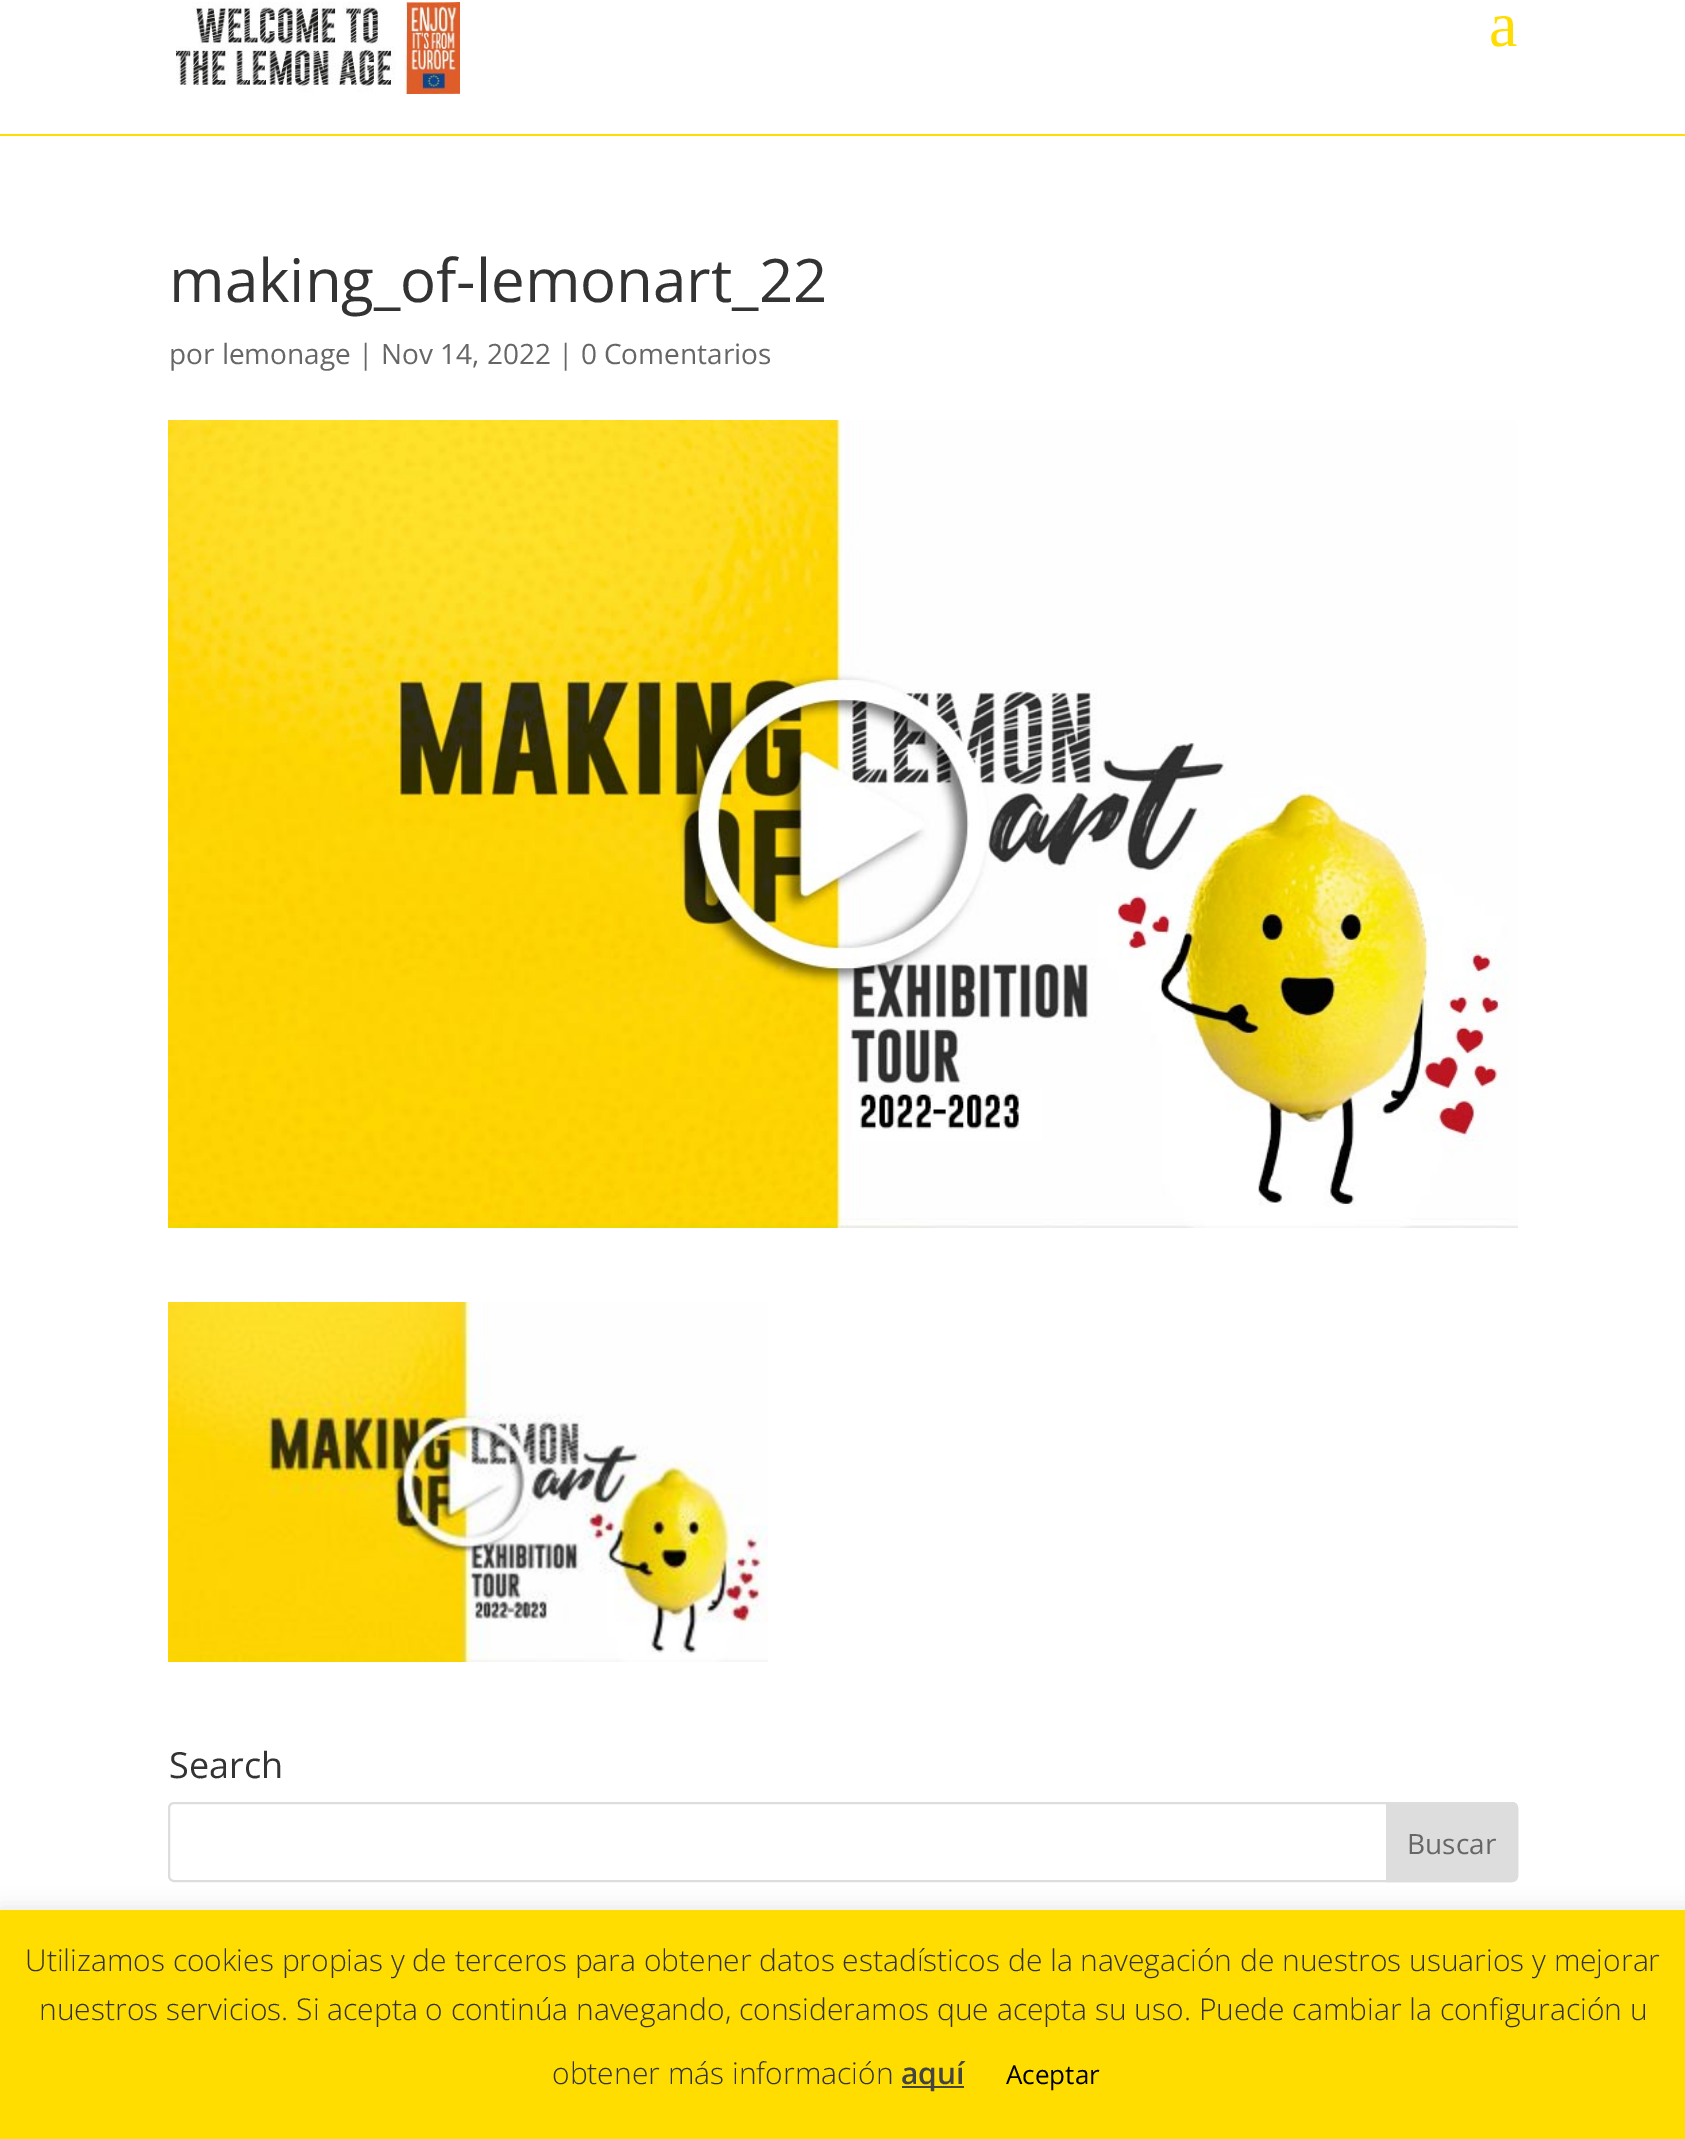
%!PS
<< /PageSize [1685 2139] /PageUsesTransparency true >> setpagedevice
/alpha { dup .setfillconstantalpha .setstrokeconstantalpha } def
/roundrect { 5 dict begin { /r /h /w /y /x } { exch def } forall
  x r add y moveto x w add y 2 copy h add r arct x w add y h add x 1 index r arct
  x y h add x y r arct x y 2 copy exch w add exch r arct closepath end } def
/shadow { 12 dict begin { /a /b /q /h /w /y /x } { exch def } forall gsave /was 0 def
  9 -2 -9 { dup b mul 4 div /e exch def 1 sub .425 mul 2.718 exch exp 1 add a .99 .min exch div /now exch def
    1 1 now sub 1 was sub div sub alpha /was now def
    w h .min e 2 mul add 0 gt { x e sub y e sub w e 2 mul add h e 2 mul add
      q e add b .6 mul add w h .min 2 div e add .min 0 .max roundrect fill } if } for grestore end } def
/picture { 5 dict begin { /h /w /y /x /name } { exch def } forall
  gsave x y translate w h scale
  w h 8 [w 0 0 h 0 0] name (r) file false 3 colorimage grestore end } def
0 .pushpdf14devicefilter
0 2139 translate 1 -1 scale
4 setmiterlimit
1 setgray
0 0 1685 2139 rectfill
1 0.867 0 setrgbcolor
0 134 1685 2 rectfill
(img1.rgb) 176 2 284 92 picture
/LiberationSerif-Regular [64 0 0 -64 0 0] selectfont
1489 46 moveto (a) show
/OpenSans-Regular [60 0 0 -60 0 0] selectfont
0.2 setgray
169 302 moveto (making_of-lemonart_22) show
/OpenSans-Regular [28 0 0 -28 0 0] selectfont
0.4 setgray
169 364 moveto (por lemonage | Nov 14, 2022 | 0 Comentarios) show
(img2.rgb) 168 420 1350 808 picture
(img3.rgb) 168 1302 600 360 picture
/OpenSans-Regular [36 0 0 -36 0 0] selectfont
0.2 setgray
169 1778 moveto (Search) show
0.867 setgray
2 setlinewidth
169 1803 1348 78 5 roundrect stroke
newpath 1387 1803 moveto 1512 1803 lineto 1515 1803 1517 1805 1517 1808 curveto 1517 1876 lineto 1517 1879 1515 1881 1512 1881 curveto 1387 1881 lineto closepath gsave fill grestore
stroke
/OpenSans-Regular [28 0 0 -28 0 0] selectfont
0.4 setgray
1407 1854 moveto (Buscar) show
0.675 0.671 0.671 setrgbcolor
0 1908 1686 230 0 10 0.3 shadow
1 0.867 0 setrgbcolor
0 1910 1685 229 rectfill
/OpenSans-Light [30 0 0 -30 0 0] selectfont
0.2 setgray
25 1971 moveto (Utilizamos cookies propias y de terceros para obtener datos estadísticos de la navegación de nuestros usuarios y mejorar) show
39 2020 moveto (nuestros servicios. Si acepta o continúa navegando, consideramos que acepta su uso. Puede cambiar la configuración u) show
552 2084 moveto (obtener más información) show
0.267 setgray
902 2086 62 2 rectfill
/OpenSans-SemiBold [30 0 0 -30 0 0] selectfont
901 2084 moveto (aquí) show
/OpenSans-Regular [26 0 0 -26 0 0] selectfont
0 setgray
1006 2084 moveto (Aceptar) show
.poppdf14devicefilter showpage
